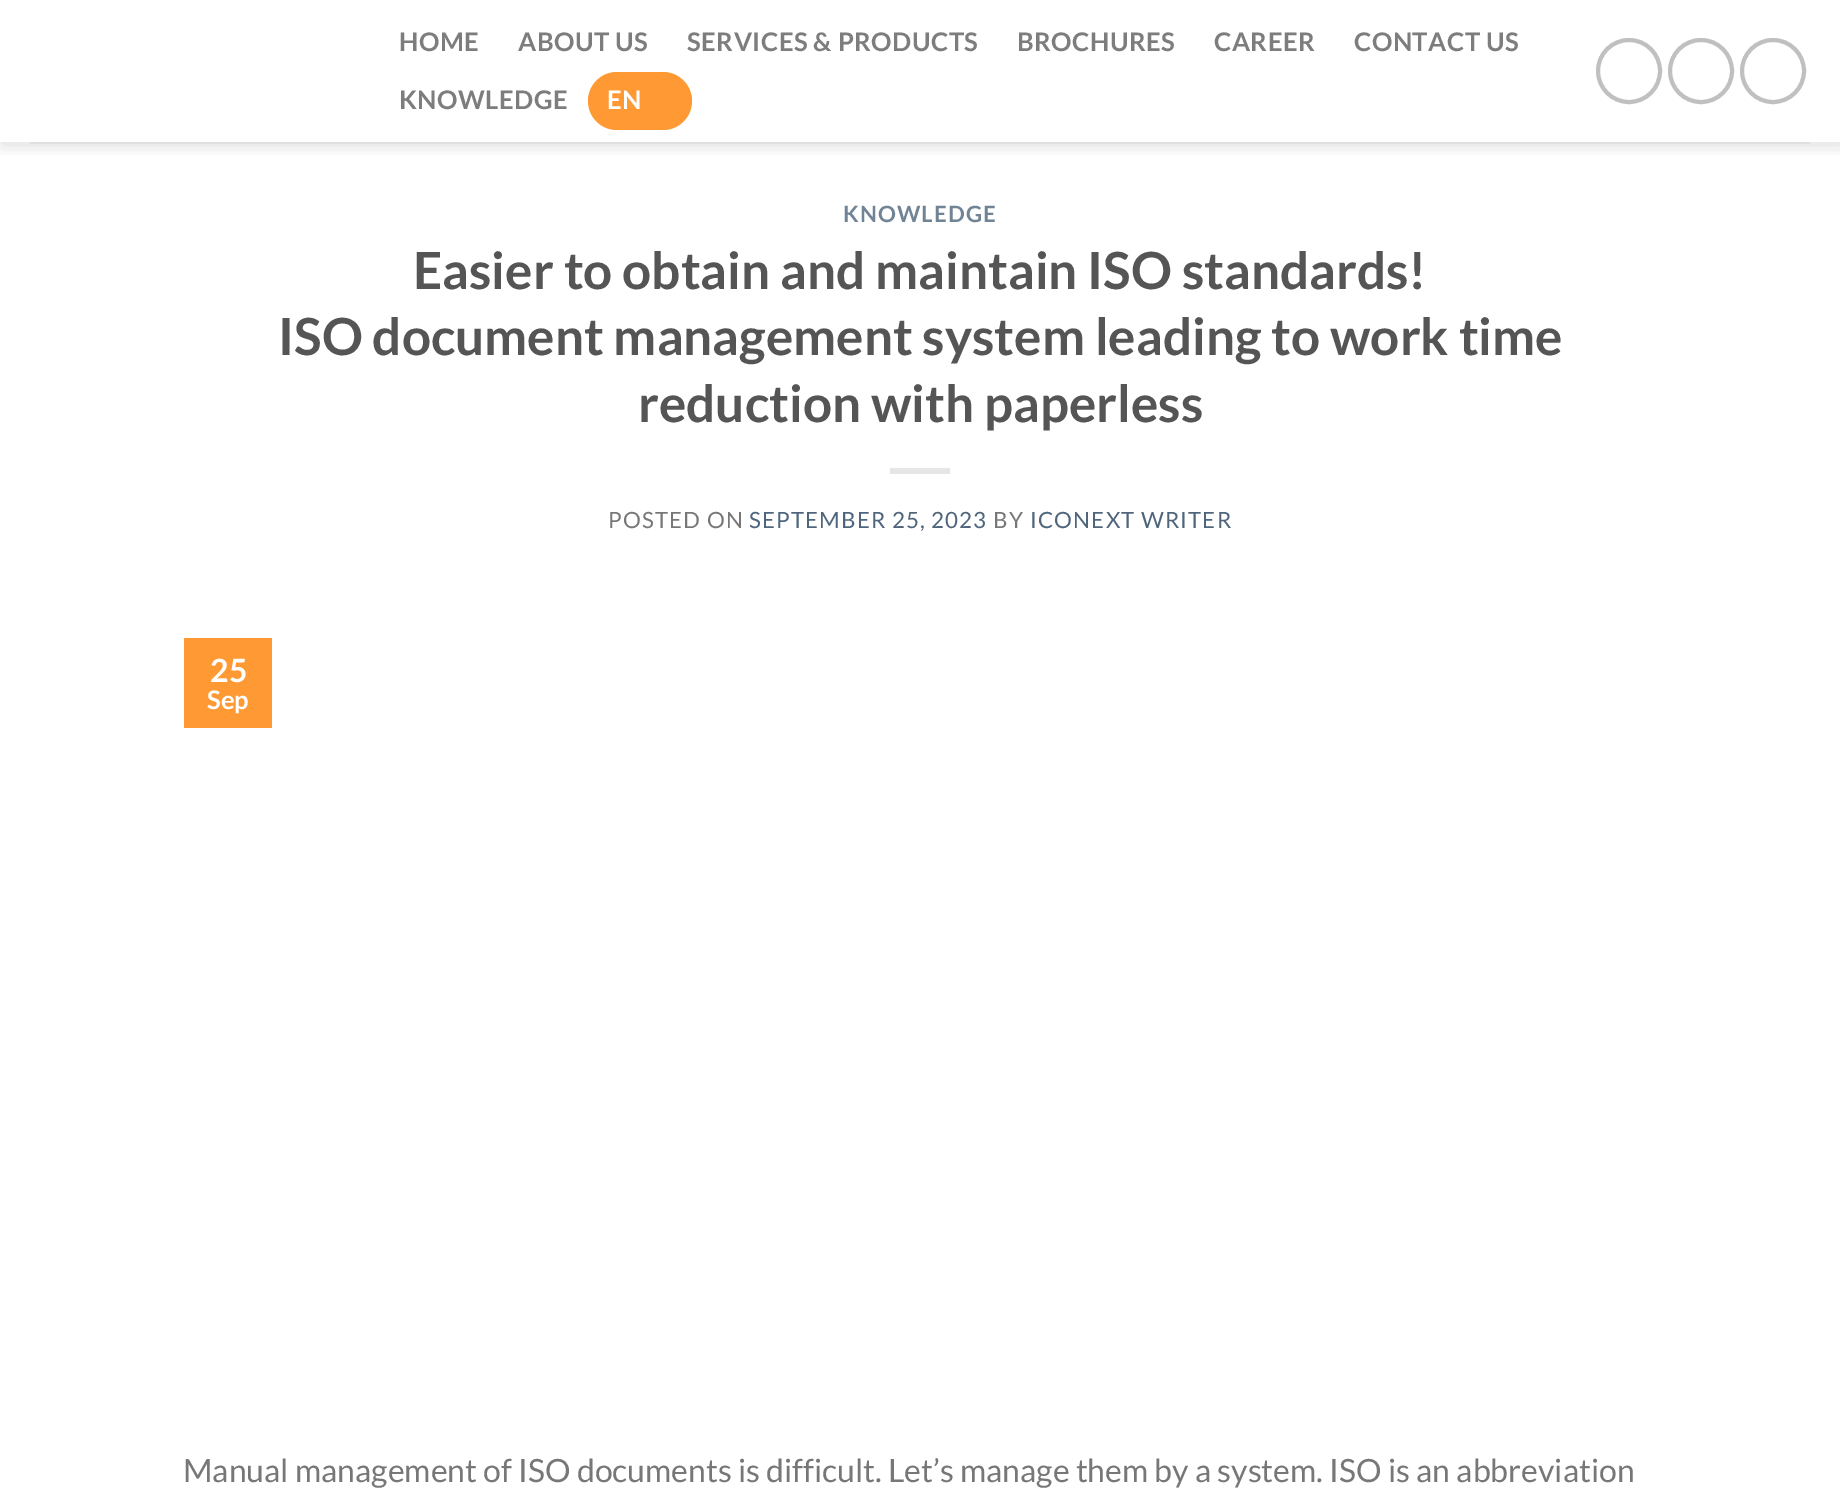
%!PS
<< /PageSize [1840 1501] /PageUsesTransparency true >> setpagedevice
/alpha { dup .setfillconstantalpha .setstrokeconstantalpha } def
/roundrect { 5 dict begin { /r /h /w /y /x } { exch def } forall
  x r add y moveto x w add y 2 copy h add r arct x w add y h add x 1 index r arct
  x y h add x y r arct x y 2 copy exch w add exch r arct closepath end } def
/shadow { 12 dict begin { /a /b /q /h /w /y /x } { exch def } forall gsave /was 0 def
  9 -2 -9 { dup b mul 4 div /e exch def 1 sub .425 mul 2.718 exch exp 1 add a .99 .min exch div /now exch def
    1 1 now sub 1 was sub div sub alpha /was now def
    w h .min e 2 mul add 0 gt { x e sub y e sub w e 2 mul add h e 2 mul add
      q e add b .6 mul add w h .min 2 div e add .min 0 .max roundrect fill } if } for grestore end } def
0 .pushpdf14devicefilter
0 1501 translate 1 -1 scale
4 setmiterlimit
1 setgray
0 0 1840 1501 rectfill
gsave
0 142 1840 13 rectclip
0 setgray
2 2 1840 142 0 10 0.15 shadow
grestore
/Lato-Bold [25.6 0 0 -25.6 0 0] selectfont
0.49 setgray
399 51 moveto 0.5 0 (HOME) ashow
518 51 moveto 0.5 0 (ABOUT US) ashow
687 51 moveto 0.5 0 (SERVICES & PRODUCTS) ashow
1017 51 moveto 0.5 0 (BROCHURES) ashow
1214 51 moveto 0.5 0 (CAREER) ashow
1354 51 moveto 0.5 0 (CONTACT US) ashow
399 109 moveto 0.5 0 (KNOWLEDGE) ashow
1 0.6 0.204 setrgbcolor
588 72 104 58 29 roundrect fill
1 setgray
607 109 moveto 0.5 0 (EN) ashow
0.753 setgray
4 setlinewidth
newpath 1629 71 31 0 360 arc closepath stroke
newpath 1701 71 31 0 360 arc closepath stroke
newpath 1773 71 31 0 360 arc closepath stroke
0.875 setgray
30 142 1780 2 rectfill
/Lato-Bold [22.4 0 0 -22.4 0 0] selectfont
0.443 0.518 0.584 setrgbcolor
843 222 moveto 1.1 0 (KNOWLEDGE) ashow
/Lato-Bold [51.2 0 0 -51.2 0 0] selectfont
0.333 setgray
413 289 moveto (Easier to obtain and maintain ISO standards!) show
278 355 moveto (ISO document management system leading to work time) show
638 422 moveto (reduction with paperless) show
0.902 setgray
890 468 60 6 rectfill
/Lato-Regular [22.4 0 0 -22.4 0 0] selectfont
0.467 setgray
608 528 moveto 1.1 0 (POSTED ON) ashow
0.306 0.396 0.482 setrgbcolor
749 528 moveto 1.1 0 (SEPTEMBER 25, 2023) ashow
0.467 setgray
993 528 moveto 1.1 0 (BY) ashow
0.306 0.396 0.482 setrgbcolor
1030 528 moveto 1.1 0 (ICONEXT WRITER) ashow
1 0.6 0.204 setrgbcolor
184 638 88 90 rectfill
/Lato-Bold [32 0 0 -32 0 0] selectfont
1 setgray
210 682 moveto (25) show
/Lato-Bold [25.6 0 0 -25.6 0 0] selectfont
207 709 moveto (Sep) show
/Lato-Regular [32 0 0 -32 0 0] selectfont
0.467 setgray
183 1482 moveto (Manual management of ISO documents is difficult. Let’s manage them by a system. ISO is an abbreviation) show
.poppdf14devicefilter showpage
